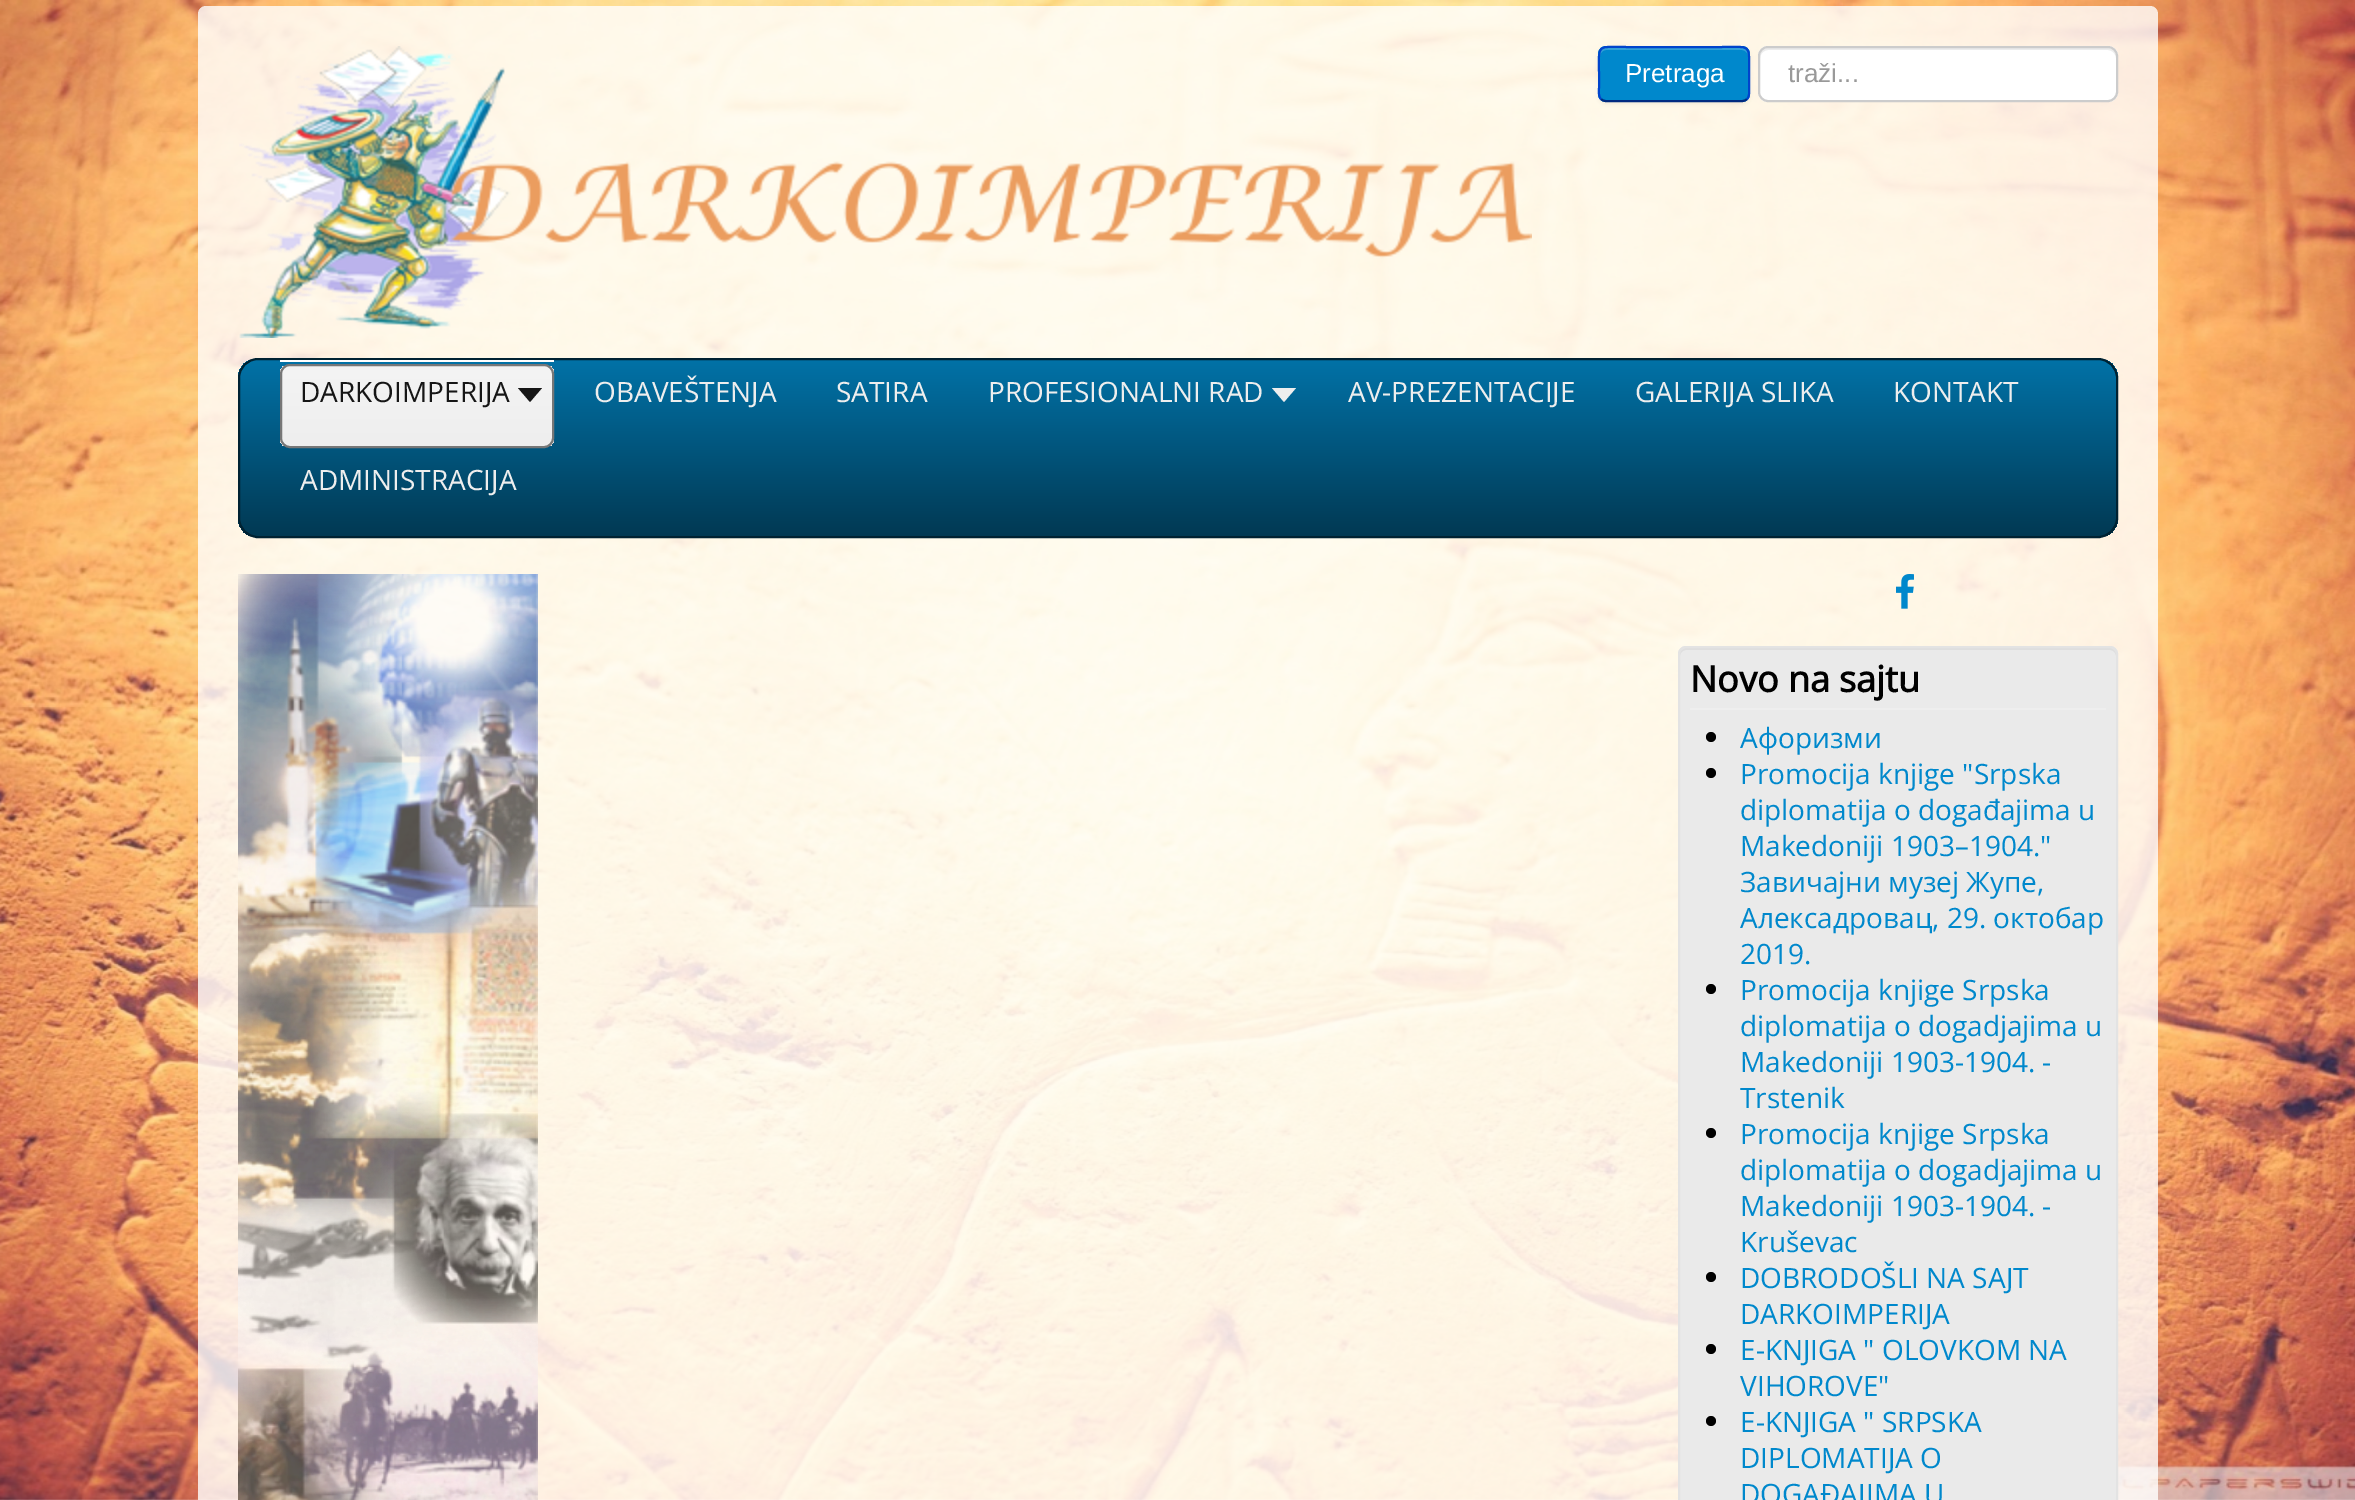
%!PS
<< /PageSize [2355 1500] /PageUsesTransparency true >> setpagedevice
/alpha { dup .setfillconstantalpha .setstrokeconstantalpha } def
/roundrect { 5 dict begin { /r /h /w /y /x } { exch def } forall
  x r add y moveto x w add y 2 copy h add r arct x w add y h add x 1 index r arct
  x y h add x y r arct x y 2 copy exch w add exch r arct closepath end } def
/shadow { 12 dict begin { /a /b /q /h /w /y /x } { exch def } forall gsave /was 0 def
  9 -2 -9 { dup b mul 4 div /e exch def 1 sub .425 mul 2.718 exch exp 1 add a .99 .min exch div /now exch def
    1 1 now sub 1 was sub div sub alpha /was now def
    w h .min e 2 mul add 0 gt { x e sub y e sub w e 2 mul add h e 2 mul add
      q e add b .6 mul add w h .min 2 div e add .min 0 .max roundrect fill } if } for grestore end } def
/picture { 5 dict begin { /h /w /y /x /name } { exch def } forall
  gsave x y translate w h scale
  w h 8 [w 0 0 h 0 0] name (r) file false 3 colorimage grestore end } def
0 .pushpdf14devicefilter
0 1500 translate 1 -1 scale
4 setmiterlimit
1 setgray
0 0 2355 1500 rectfill
(img1.rgb) 0 0 2355 1500 picture
0.8 alpha
198 6 1960 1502 8 roundrect fill
1 alpha
(img2.rgb) 239 46 1293 292 picture
0 setgray
1598 48 152 56 8 2 0.05 shadow
0 0.533 0.8 setrgbcolor
1598 46 152 56 8 roundrect fill
0.2 0.627 0.839 setrgbcolor
newpath 1606 50 moveto 1742 50 lineto 1745 50 1748 53 1748 56 curveto 1748 54 lineto 1748 51 1745 48 1742 48 curveto 1606 48 lineto 1603 48 1600 51 1600 54 curveto 1600 56 lineto 1600 53 1603 50 1606 50 curveto closepath fill
0 0.165 0.502 setrgbcolor
2 setlinewidth
newpath 1747 99 moveto 1745.5 100.5 1744 101 1742 101 curveto 1606 101 lineto 1604 101 1602.5 100.5 1601 99 curveto stroke
0 0.267 0.8 setrgbcolor
newpath 1601 99 moveto 1598 96 1599 91 1599 87.5 curveto 1599 74 lineto 1599 42.5 1595.5 47 1628.5 47 curveto 1719.5 47 lineto 1752.5 47 1749 42.5 1749 74 curveto 1749 87.5 lineto 1749 91 1750 96 1747 99 curveto stroke
/LiberationSans-Regular [26 0 0 -26 0 0] selectfont
1 setgray
1625 82 moveto (Pretraga) show
1758 46 360 56 10 roundrect fill
0.925 setgray
newpath 1768 50 moveto 2108 50 lineto 2112 50 2116 54 2116 58 curveto 2116 56 lineto 2116 52 2112 48 2108 48 curveto 1768 48 lineto 1764 48 1760 52 1760 56 curveto 1760 58 lineto 1760 54 1764 50 1768 50 curveto closepath fill
0.8 setgray
1759 47 358 54 9 roundrect stroke
0.6 setgray
1788 82 moveto (traži...) show
gsave
238 358 1880 180 20 roundrect clip newpath
gsave newpath 238 360 moveto 2118 360 lineto 2118 536 lineto 238 536 lineto closepath clip newpath
<< /ShadingType 2 /ColorSpace /DeviceRGB /Coords [1178 360 1178 536] /Extend [true true] /Function << /FunctionType 2 /Domain [0 1] /C0 [0.008 0.447 0.655] /C1 [0.004 0.224 0.325] /N 1 >> >> shfill grestore
grestore
0 0.133 0.196 setrgbcolor
239 359 1878 178 19 roundrect stroke
1 setgray
280 360 274 2 rectfill
gsave
280 364 274 84 10 roundrect clip newpath
gsave newpath 280 366 moveto 554 366 lineto 554 446 lineto 280 446 lineto closepath clip newpath
<< /ShadingType 2 /ColorSpace /DeviceRGB /Coords [282 366 282 446] /Extend [true true] /Function << /FunctionType 2 /Domain [0 1] /C0 [0.957 0.957 0.957] /C1 [0.933 0.933 0.933] /N 1 >> >> shfill grestore
grestore
0.467 setgray
281 365 272 82 9 roundrect stroke
/OpenSans-Regular [28 0 0 -28 0 0] selectfont
0.086 setgray
300 402 moveto (DARKOIMPERIJA) show
newpath 518 388 moveto 542 388 lineto 530 402 lineto closepath fill
0.933 setgray
594 402 moveto (OBAVEŠTENJA) show
836 402 moveto (SATIRA) show
988 402 moveto (PROFESIONALNI RAD) show
newpath 1272 388 moveto 1296 388 lineto 1284 402 lineto closepath fill
1348 402 moveto (AV-PREZENTACIJE) show
1635 402 moveto (GALERIJA SLIKA) show
1893 402 moveto (KONTAKT) show
300 490 moveto (ADMINISTRACIJA) show
(img3.rgb) 238 574 300 926 picture
(img4.rgb) 1896 574 18 35 picture
0.918 setgray
1678 646 440 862 8 roundrect fill
0.871 setgray
newpath 1686 650 moveto 2110 650 lineto 2113 650 2116 653 2116 656 curveto 2116 654 lineto 2116 651 2113 648 2110 648 curveto 1686 648 lineto 1683 648 1680 651 1680 654 curveto 1680 656 lineto 1680 653 1683 650 1686 650 curveto closepath fill
0.89 setgray
1679 647 438 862 7 roundrect stroke
0.933 setgray
1690 708 416 2 rectfill
/OpenSans-Bold [36 0 0 -36 0 0] selectfont
0 setgray
1690 692 moveto (Novo na sajtu) show
newpath 1711 737 5 0 360 arc closepath fill
/OpenSans-Regular [28 0 0 -28 0 0] selectfont
0 0.533 0.8 setrgbcolor
1740 748 moveto (Афоризми) show
0 setgray
newpath 1711 773 5 0 360 arc closepath fill
0 0.533 0.8 setrgbcolor
1740 784 moveto (Promocijа knjige "Srpskа) show
1740 820 moveto (diplomаtijа o dogаđаjimа u) show
1740 856 moveto (Mаkedoniji 1903–1904.") show
1740 892 moveto (Завичајни музеј Жупе,) show
1740 928 moveto (Алексадровац, 29. октобар) show
1740 964 moveto (2019.) show
0 setgray
newpath 1711 989 5 0 360 arc closepath fill
0 0.533 0.8 setrgbcolor
1740 1000 moveto (Promocija knjige Srpska) show
1740 1036 moveto (diplomatija o dogadjajima u) show
1740 1072 moveto (Makedoniji 1903-1904. -) show
1740 1108 moveto (Trstenik) show
0 setgray
newpath 1711 1133 5 0 360 arc closepath fill
0 0.533 0.8 setrgbcolor
1740 1144 moveto (Promocija knjige Srpska) show
1740 1180 moveto (diplomatija o dogadjajima u) show
1740 1216 moveto (Makedoniji 1903-1904. -) show
1740 1252 moveto (Kruševac) show
0 setgray
newpath 1711 1277 5 0 360 arc closepath fill
0 0.533 0.8 setrgbcolor
1740 1288 moveto (DOBRODOŠLI NA SAJT) show
1740 1324 moveto (DARKOIMPERIJA) show
0 setgray
newpath 1711 1349 5 0 360 arc closepath fill
0 0.533 0.8 setrgbcolor
1740 1360 moveto (E-KNJIGA " OLOVKOM NA) show
1740 1396 moveto (VIHOROVE") show
0 setgray
newpath 1711 1421 5 0 360 arc closepath fill
0 0.533 0.8 setrgbcolor
1740 1432 moveto (E-KNJIGA " SRPSKA) show
1740 1468 moveto (DIPLOMATIJA O) show
1740 1504 moveto (DOGAĐAJIMA U) show
.poppdf14devicefilter showpage
